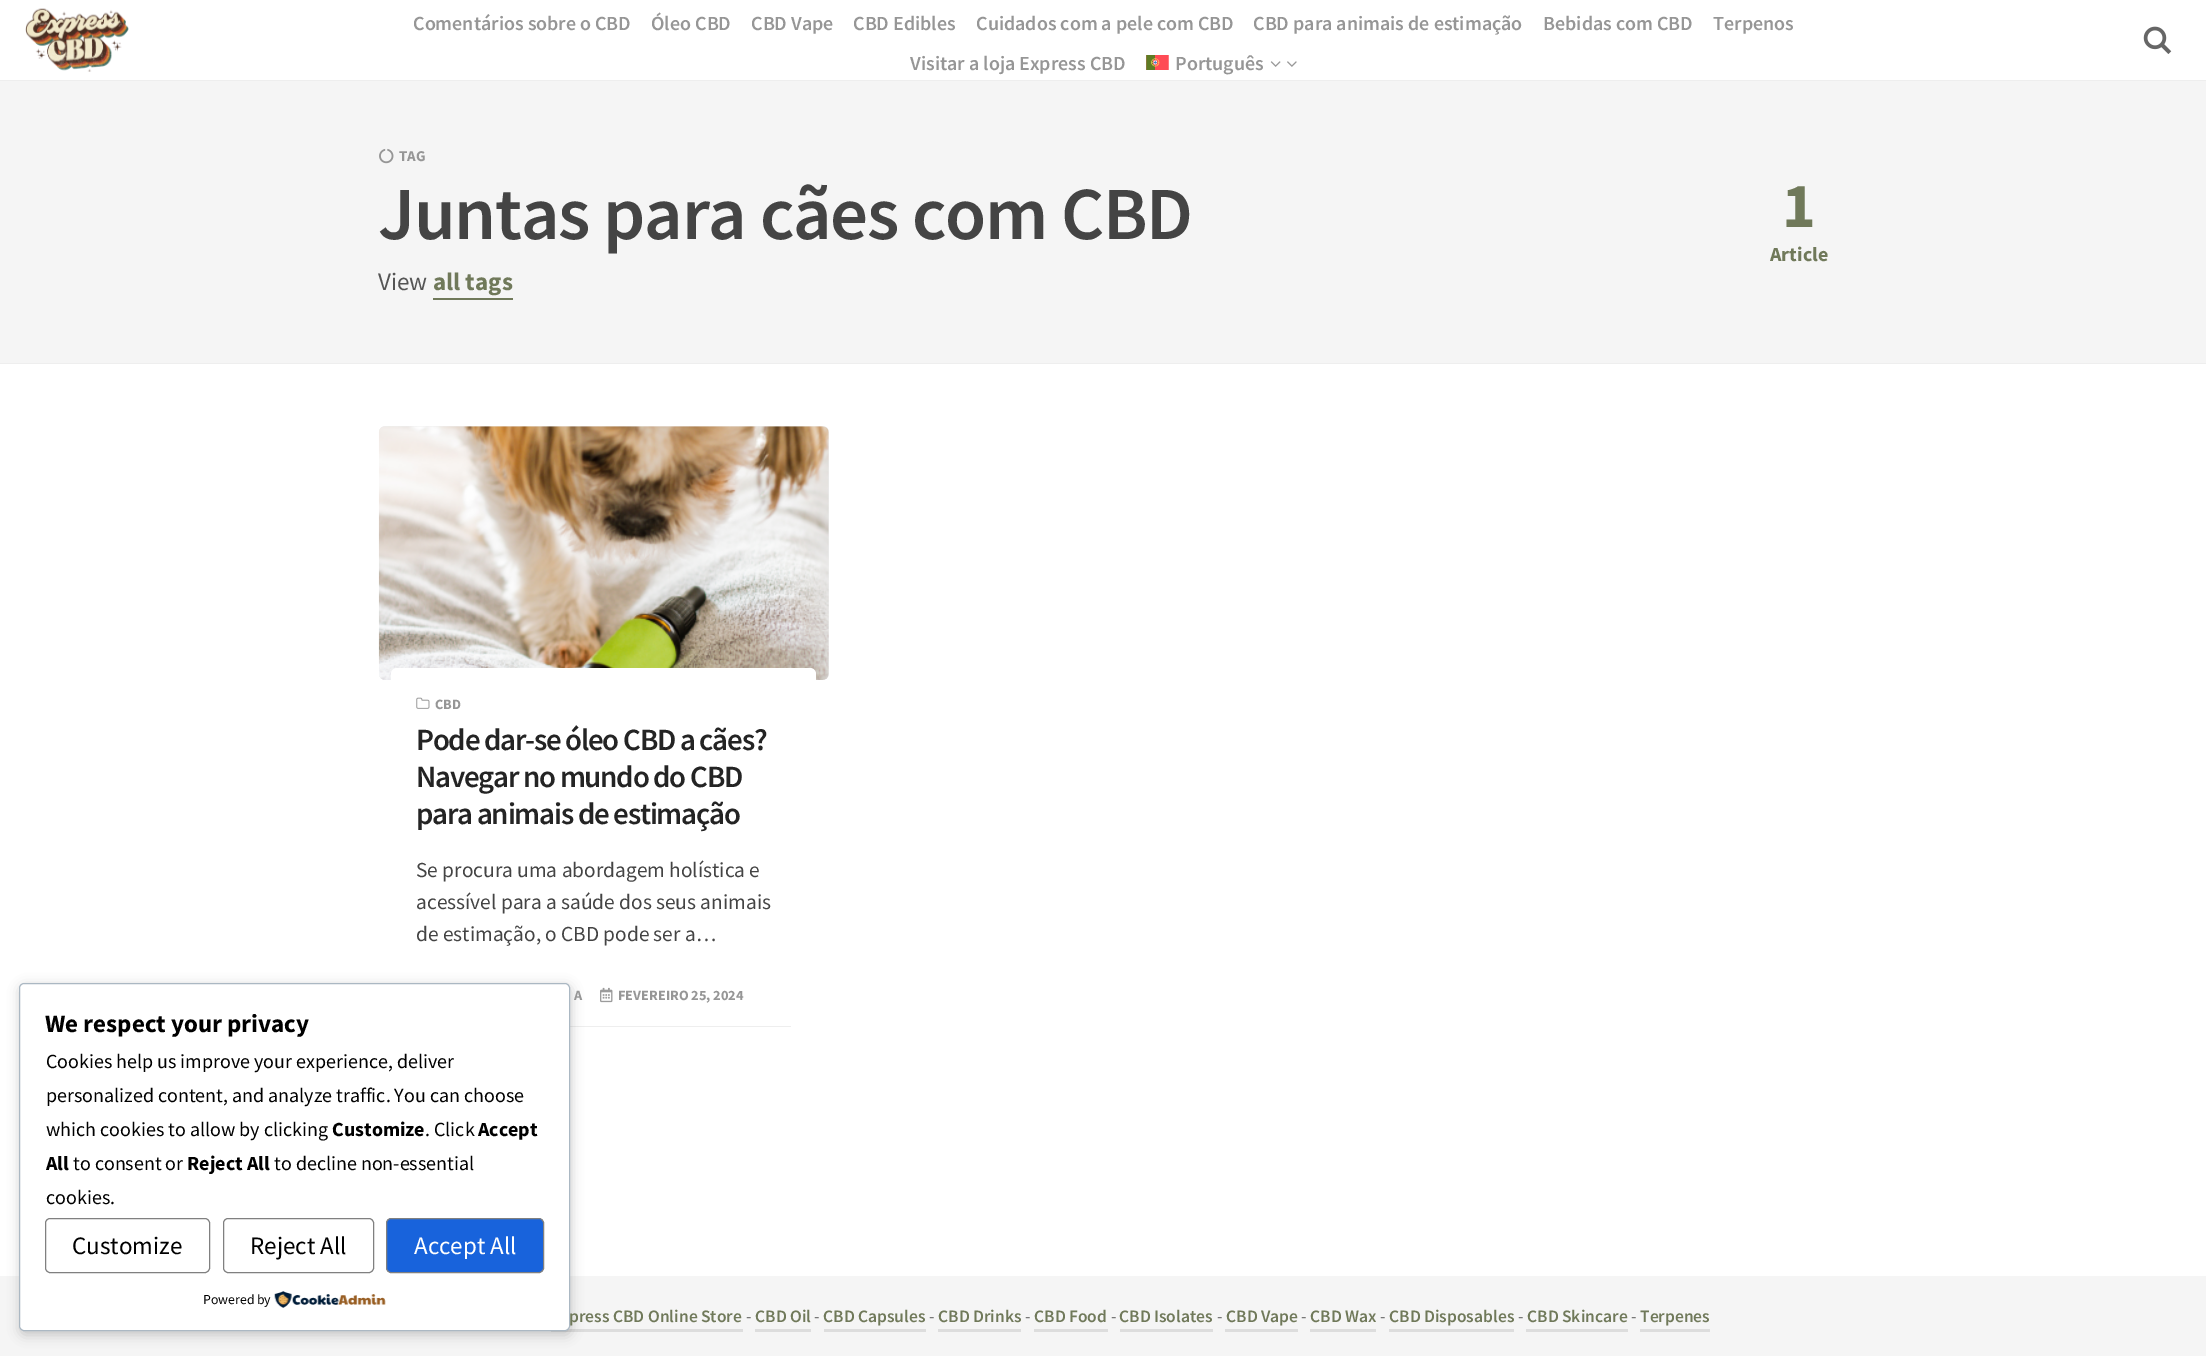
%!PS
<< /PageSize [2206 1356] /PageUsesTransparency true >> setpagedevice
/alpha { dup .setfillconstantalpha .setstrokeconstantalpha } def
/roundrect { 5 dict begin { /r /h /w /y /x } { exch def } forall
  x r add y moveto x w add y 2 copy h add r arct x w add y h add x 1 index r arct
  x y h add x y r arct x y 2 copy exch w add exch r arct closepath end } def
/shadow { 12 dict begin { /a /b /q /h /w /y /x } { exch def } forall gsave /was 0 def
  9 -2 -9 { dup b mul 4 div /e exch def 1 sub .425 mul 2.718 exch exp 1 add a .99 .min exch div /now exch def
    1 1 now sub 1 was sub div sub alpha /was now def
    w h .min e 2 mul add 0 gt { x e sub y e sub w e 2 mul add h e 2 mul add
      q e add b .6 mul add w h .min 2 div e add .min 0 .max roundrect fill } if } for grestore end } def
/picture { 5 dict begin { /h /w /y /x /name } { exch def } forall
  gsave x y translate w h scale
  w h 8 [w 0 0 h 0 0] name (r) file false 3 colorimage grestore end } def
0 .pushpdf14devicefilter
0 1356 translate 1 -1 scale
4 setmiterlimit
1 setgray
0 0 2206 1356 rectfill
0.933 setgray
379 426 450 254 6 roundrect fill
(img8.rgb) 378 426 451 254 picture
1 setgray
391 668 425 307 6 roundrect fill
0.933 setgray
570 1026 221 1 rectfill
0.961 setgray
0 1276 2206 80 rectfill
0.867 setgray
551 1329 192 3 rectfill
0 setgray
20 986 551 349 5 6 0.2 shadow
1 setgray
19.5 983.5 550 347 4.5 roundrect gsave fill grestore
0.671 0.722 0.765 setrgbcolor
stroke
/SourceSansPro-Bold [25 0 0 -25 0 0] selectfont
0 setgray
45 1032 moveto (We respect your privacy) show
/SourceSansPro-Regular [20 0 0 -20 0 0] selectfont
46 1068 moveto (Cookies help us improve your experience, deliver) show
46 1102 moveto (personalized content, and analyze traffic. You can choose) show
46 1136 moveto (which cookies to allow by clicking) show
/SourceSansPro-Bold [20 0 0 -20 0 0] selectfont
332 1136 moveto (Customize) show
/SourceSansPro-Regular [20 0 0 -20 0 0] selectfont
425 1136 moveto (. Click) show
/SourceSansPro-Bold [20 0 0 -20 0 0] selectfont
478 1136 moveto (Accept) show
46 1170 moveto (All) show
/SourceSansPro-Regular [20 0 0 -20 0 0] selectfont
73 1170 moveto (to consent or) show
/SourceSansPro-Bold [20 0 0 -20 0 0] selectfont
187 1170 moveto (Reject All) show
/SourceSansPro-Regular [20 0 0 -20 0 0] selectfont
274 1170 moveto (to decline non-essential) show
46 1204 moveto (cookies.) show
0.502 setgray
45.5 1218.5 164 54 4.5 roundrect stroke
/SourceSansPro-Regular [25 0 0 -25 0 0] selectfont
0 setgray
72 1254 moveto (Customize) show
0.502 setgray
223.5 1218.5 150 54 4.5 roundrect stroke
0 setgray
250 1254 moveto (Reject All) show
0.094 0.388 0.863 setrgbcolor
386.5 1218.5 157 54 4.5 roundrect gsave fill grestore
0.502 setgray
stroke
1 setgray
414 1254 moveto (Accept All) show
/SourceSansPro-Regular [13.75 0 0 -13.75 0 0] selectfont
0 setgray
203 1304 moveto (Powered by) show
(img1.rgb) 274 1291 112 17 picture
0.933 setgray
0 80 2206 1 rectfill
(img2.rgb) 25 8 104 64 picture
(img3.rgb) 2143 26 29 28 picture
/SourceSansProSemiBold-SemiBold [20 0 0 -20 0 0] selectfont
0.588 setgray
413 30 moveto (Comentários sobre o CBD) show
651 30 moveto (Óleo CBD) show
751 30 moveto (CBD Vape) show
853 30 moveto (CBD Edibles) show
976 30 moveto (Cuidados com a pele com CBD) show
1253 30 moveto (CBD para animais de estimação) show
1543 30 moveto (Bebidas com CBD) show
1713 30 moveto (Terpenos) show
910 70 moveto (Visitar a loja Express CBD) show
(img4.rgb) 1146 55 23 15 picture
1175 70 moveto (Português) show
(img5.rgb) 1270 61 11 6 picture
(img6.rgb) 1287 61 10 6 picture
0.961 setgray
0 81 2206 282 rectfill
0.933 setgray
0 363 2206 1 rectfill
(img7.rgb) 379 148 15 16 picture
/SourceSansPro-Bold [15 0 0 -15 0 0] selectfont
0.588 setgray
399 161 moveto (TAG) show
/SourceSansProSemiBold-SemiBold [75 0 0 -75 0 0] selectfont
0.267 setgray
378 239 moveto -1.25 0 (Juntas para cães com CBD) ashow
/SourceSansPro-Regular [25 0 0 -25 0 0] selectfont
0.333 setgray
378 290 moveto (View) show
/SourceSansPro-Bold [25 0 0 -25 0 0] selectfont
0.439 0.475 0.353 setrgbcolor
433 290 moveto (all tags) show
433 298 80 2 rectfill
/SourceSansPro-Bold [64 0 0 -64 0 0] selectfont
1782 227 moveto (1) show
/SourceSansPro-Bold [20 0 0 -20 0 0] selectfont
1770 261 moveto (Article) show
(img9.rgb) 416 697 14 12 picture
/SourceSansPro-Bold [14.25 0 0 -14.25 0 0] selectfont
0.588 setgray
435 709 moveto (CBD) show
/SourceSansProSemiBold-SemiBold [30.9 0 0 -30.9 0 0] selectfont
0.141 setgray
416 750 moveto -1.25 0 (Pode dar-se óleo CBD a cães?) ashow
416 787 moveto -1.25 0 (Navegar no mundo do CBD) ashow
416 824 moveto -1.25 0 (para animais de estimação) ashow
/SourceSansPro-Regular [21.4 0 0 -21.4 0 0] selectfont
0.267 setgray
416 877 moveto (Se procura uma abordagem holística e) show
416 909 moveto (acessível para a saúde dos seus animais) show
416 941 moveto (de estimação, o CBD pode ser a…) show
/SourceSansPro-Bold [14.25 0 0 -14.25 0 0] selectfont
0.588 setgray
574 1000 moveto (A) show
(img10.rgb) 600 987 13 16 picture
618 1000 moveto (FEVEREIRO 25, 2024) show
/SourceSansProSemiBold-SemiBold [17.5 0 0 -17.5 0 0] selectfont
0.439 0.475 0.353 setrgbcolor
569 1322 moveto (press CBD Online Store) show
/SourceSansPro-Regular [17.5 0 0 -17.5 0 0] selectfont
0.467 setgray
746 1322 moveto (-) show
/SourceSansProSemiBold-SemiBold [17.5 0 0 -17.5 0 0] selectfont
0.439 0.475 0.353 setrgbcolor
755 1322 moveto (CBD Oil) show
0.867 setgray
755 1329 56 3 rectfill
/SourceSansPro-Regular [17.5 0 0 -17.5 0 0] selectfont
0.467 setgray
814 1322 moveto (-) show
/SourceSansProSemiBold-SemiBold [17.5 0 0 -17.5 0 0] selectfont
0.439 0.475 0.353 setrgbcolor
823 1322 moveto (CBD Capsules) show
0.867 setgray
824 1329 102 3 rectfill
/SourceSansPro-Regular [17.5 0 0 -17.5 0 0] selectfont
0.467 setgray
929 1322 moveto (-) show
/SourceSansProSemiBold-SemiBold [17.5 0 0 -17.5 0 0] selectfont
0.439 0.475 0.353 setrgbcolor
938 1322 moveto (CBD Drinks) show
0.867 setgray
938 1329 83 3 rectfill
/SourceSansPro-Regular [17.5 0 0 -17.5 0 0] selectfont
0.467 setgray
1025 1322 moveto (-) show
/SourceSansProSemiBold-SemiBold [17.5 0 0 -17.5 0 0] selectfont
0.439 0.475 0.353 setrgbcolor
1034 1322 moveto (CBD Food) show
0.867 setgray
1034 1329 74 3 rectfill
/SourceSansPro-Regular [17.5 0 0 -17.5 0 0] selectfont
0.467 setgray
1111 1322 moveto (-) show
/SourceSansProSemiBold-SemiBold [17.5 0 0 -17.5 0 0] selectfont
0.439 0.475 0.353 setrgbcolor
1119 1322 moveto (CBD Isolates) show
0.867 setgray
1120 1329 93 3 rectfill
/SourceSansPro-Regular [17.5 0 0 -17.5 0 0] selectfont
0.467 setgray
1217 1322 moveto (-) show
/SourceSansProSemiBold-SemiBold [17.5 0 0 -17.5 0 0] selectfont
0.439 0.475 0.353 setrgbcolor
1226 1322 moveto (CBD Vape) show
0.867 setgray
1225 1329 73 3 rectfill
/SourceSansPro-Regular [17.5 0 0 -17.5 0 0] selectfont
0.467 setgray
1301 1322 moveto (-) show
/SourceSansProSemiBold-SemiBold [17.5 0 0 -17.5 0 0] selectfont
0.439 0.475 0.353 setrgbcolor
1310 1322 moveto (CBD Wax) show
0.867 setgray
1310 1329 66 3 rectfill
/SourceSansPro-Regular [17.5 0 0 -17.5 0 0] selectfont
0.467 setgray
1380 1322 moveto (-) show
/SourceSansProSemiBold-SemiBold [17.5 0 0 -17.5 0 0] selectfont
0.439 0.475 0.353 setrgbcolor
1389 1322 moveto (CBD Disposables) show
0.867 setgray
1389 1329 125 3 rectfill
/SourceSansPro-Regular [17.5 0 0 -17.5 0 0] selectfont
0.467 setgray
1518 1322 moveto (-) show
/SourceSansProSemiBold-SemiBold [17.5 0 0 -17.5 0 0] selectfont
0.439 0.475 0.353 setrgbcolor
1527 1322 moveto (CBD Skincare) show
0.867 setgray
1526 1329 102 3 rectfill
/SourceSansPro-Regular [17.5 0 0 -17.5 0 0] selectfont
0.467 setgray
1631 1322 moveto (-) show
/SourceSansProSemiBold-SemiBold [17.5 0 0 -17.5 0 0] selectfont
0.439 0.475 0.353 setrgbcolor
1640 1322 moveto (Terpenes) show
0.867 setgray
1640 1329 70 3 rectfill
.poppdf14devicefilter showpage
